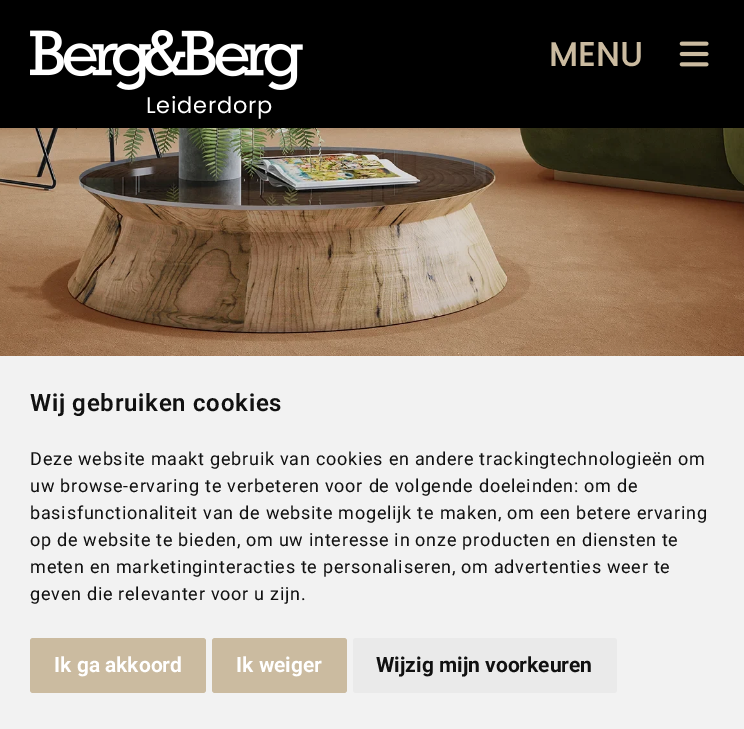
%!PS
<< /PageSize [744 729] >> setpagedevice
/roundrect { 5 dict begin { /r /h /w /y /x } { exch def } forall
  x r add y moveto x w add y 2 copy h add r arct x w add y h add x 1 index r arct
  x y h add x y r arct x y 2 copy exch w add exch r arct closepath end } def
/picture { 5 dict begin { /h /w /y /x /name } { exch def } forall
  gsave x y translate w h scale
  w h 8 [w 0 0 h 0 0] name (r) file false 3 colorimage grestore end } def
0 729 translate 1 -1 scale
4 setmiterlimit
1 setgray
0 0 744 729 rectfill
0 setgray
0 0 744 128 rectfill
/Poppins-Bold [33 0 0 -33 0 0] selectfont
0.796 0.733 0.627 setrgbcolor
549 66 moveto 0.75 0 (MENU) ashow
(img1.rgb) 679 41 30 26 picture
(img2.rgb) 30 30 273 60 picture
/Poppins-Regular [22.5 0 0 -22.5 0 0] selectfont
1 setgray
146 113 moveto 0.75 0 (Leiderdorp) ashow
(img3.rgb) 0 128 744 228 picture
0.949 setgray
0 356 744 373 rectfill
/Roboto-SemiBold [24 0 0 -24 0 0] selectfont
0.067 setgray
30 411 moveto 0.75 0 (Wij gebruiken cookies) ashow
/Roboto-Regular [18 0 0 -18 0 0] selectfont
30 465 moveto 0.75 0 (Deze website maakt gebruik van cookies en andere trackingtechnologieën om) ashow
30 492 moveto 0.75 0 (uw browse-ervaring te verbeteren voor de volgende doeleinden: om de) ashow
30 519 moveto 0.75 0 (basisfunctionaliteit van de website mogelijk te maken, om een betere ervaring) ashow
30 546 moveto 0.75 0 (op de website te bieden, om uw interesse in onze producten en diensten te) ashow
30 573 moveto 0.75 0 (meten en marketinginteracties te personaliseren, om advertenties weer te) ashow
30 600 moveto 0.75 0 (geven die relevanter voor u zijn.) ashow
0.796 0.733 0.627 setrgbcolor
30 638 176 55 3 roundrect fill
/Roboto-Bold [21 0 0 -21 0 0] selectfont
1 setgray
54 672 moveto (Ik ga akkoord) show
0.796 0.733 0.627 setrgbcolor
212 638 135 55 3 roundrect fill
1 setgray
236 672 moveto (Ik weiger) show
0.918 setgray
353 638 264 55 3 roundrect fill
0.067 setgray
376 672 moveto (Wijzig mijn voorkeuren) show
showpage
